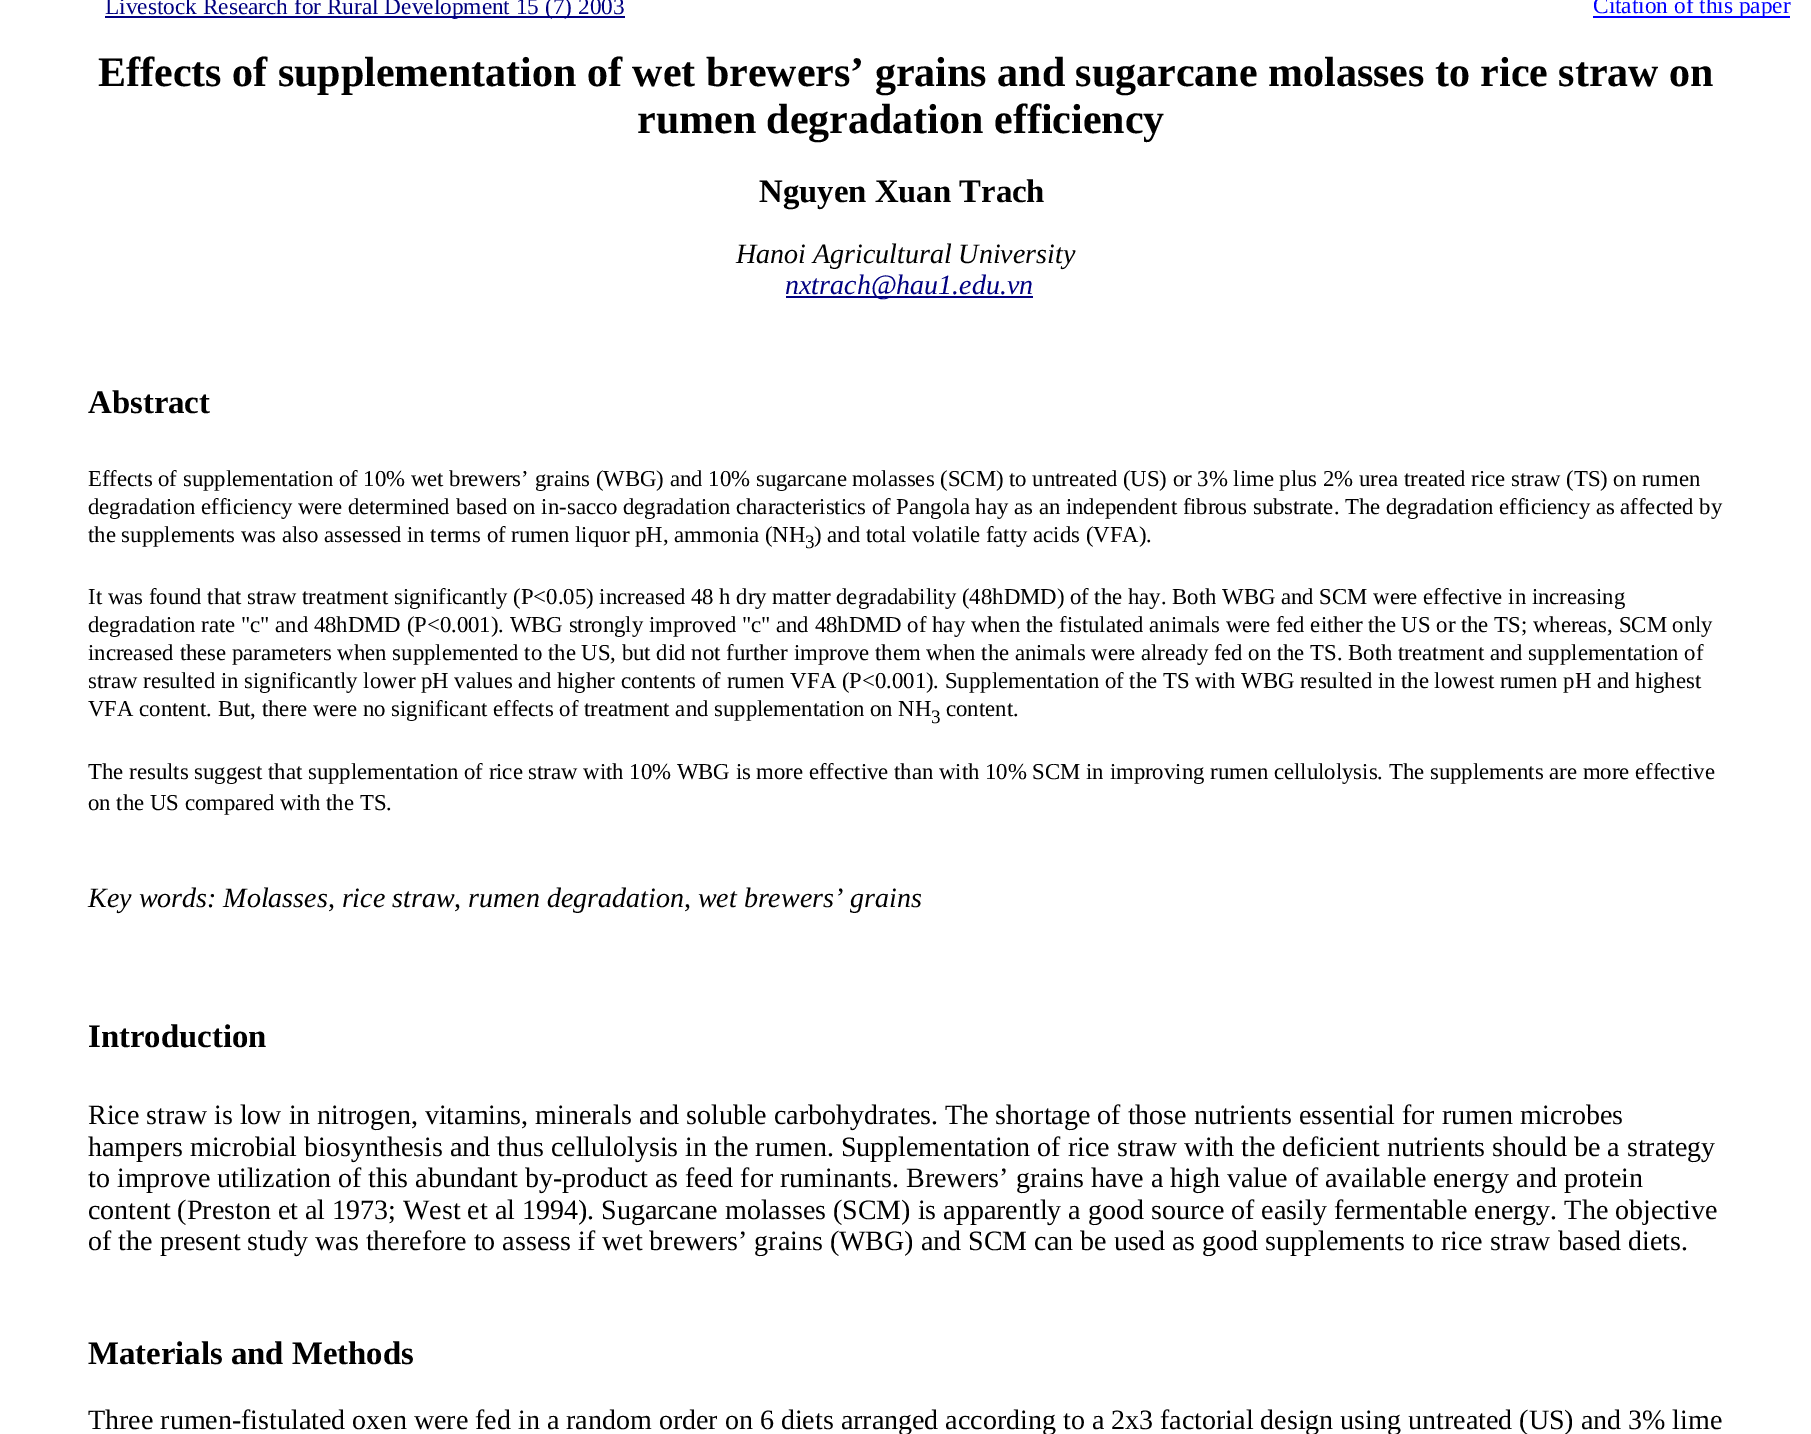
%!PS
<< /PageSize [1811 1434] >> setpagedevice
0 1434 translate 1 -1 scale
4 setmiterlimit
1 setgray
0 0 1811 1434 rectfill
0 0 0.502 setrgbcolor
105 16 520 2 rectfill
/LiberationSerif-Regular [23.3 0 0 -23.3 0 0] selectfont
105 14 moveto (Livestock Research for Rural Development 15 \(7\) 2003) show
0 0 1 setrgbcolor
1593 16 197 2 rectfill
1593 13 moveto (Citation of this paper) show
/LiberationSerif-Bold [42 0 0 -42 0 0] selectfont
0 setgray
98 86 moveto (Effects of supplementation of wet brewers’ grains and sugarcane molasses to rice straw on) show
637 133 moveto (rumen degradation efficiency) show
/LiberationSerif-Bold [32.75 0 0 -32.75 0 0] selectfont
759 202 moveto (Nguyen Xuan Trach) show
/LiberationSerif-Italic [28 0 0 -28 0 0] selectfont
736 263 moveto (Hanoi Agricultural University) show
0 0 0.502 setrgbcolor
786 296 247 2 rectfill
785 294 moveto (nxtrach@hau1.edu.vn) show
/LiberationSerif-Bold [32.75 0 0 -32.75 0 0] selectfont
0 setgray
88 413 moveto (Abstract) show
/LiberationSerif-Regular [22.75 0 0 -22.75 0 0] selectfont
88 486 moveto (Effects of supplementation of 10% wet brewers’ grains \(WBG\) and 10% sugarcane molasses \(SCM\) to untreated \(US\) or 3% lime plus 2% urea treated rice straw \(TS\) on rumen) show
88 514 moveto (degradation efficiency were determined based on in-sacco degradation characteristics of Pangola hay as an independent fibrous substrate. The degradation efficiency as affected by) show
88 542 moveto (the supplements was also assessed in terms of rumen liquor pH, ammonia \(NH) show
/LiberationSerif-Regular [19 0 0 -19 0 0] selectfont
805 548 moveto (3) show
/LiberationSerif-Regular [22.75 0 0 -22.75 0 0] selectfont
814 542 moveto (\) and total volatile fatty acids \(VFA\).) show
88 604 moveto (It was found that straw treatment significantly \(P<0.05\) increased 48 h dry matter degradability \(48hDMD\) of the hay. Both WBG and SCM were effective in increasing) show
88 632 moveto (degradation rate "c" and 48hDMD \(P<0.001\). WBG strongly improved "c" and 48hDMD of hay when the fistulated animals were fed either the US or the TS; whereas, SCM only) show
88 660 moveto (increased these parameters when supplemented to the US, but did not further improve them when the animals were already fed on the TS. Both treatment and supplementation of) show
88 688 moveto (straw resulted in significantly lower pH values and higher contents of rumen VFA \(P<0.001\). Supplementation of the TS with WBG resulted in the lowest rumen pH and highest) show
88 716 moveto (VFA content. But, there were no significant effects of treatment and supplementation on NH) show
/LiberationSerif-Regular [19 0 0 -19 0 0] selectfont
931 723 moveto (3) show
/LiberationSerif-Regular [22.75 0 0 -22.75 0 0] selectfont
946 716 moveto (content.) show
88 779 moveto (The results suggest that supplementation of rice straw with 10% WBG is more effective than with 10% SCM in improving rumen cellulolysis. The supplements are more effective) show
88 810 moveto (on the US compared with the TS.) show
/LiberationSerif-Italic [28 0 0 -28 0 0] selectfont
88 907 moveto (Key words: Molasses, rice straw, rumen degradation, wet brewers’ grains) show
/LiberationSerif-Bold [32.75 0 0 -32.75 0 0] selectfont
88 1047 moveto (Introduction) show
/LiberationSerif-Regular [28 0 0 -28 0 0] selectfont
88 1124 moveto (Rice straw is low in nitrogen, vitamins, minerals and soluble carbohydrates. The shortage of those nutrients essential for rumen microbes) show
88 1156 moveto (hampers microbial biosynthesis and thus cellulolysis in the rumen. Supplementation of rice straw with the deficient nutrients should be a strategy) show
88 1187 moveto (to improve utilization of this abundant by-product as feed for ruminants. Brewers’ grains have a high value of available energy and protein) show
88 1219 moveto (content \(Preston et al 1973; West et al 1994\). Sugarcane molasses \(SCM\) is apparently a good source of easily fermentable energy. The objective) show
88 1250 moveto (of the present study was therefore to assess if wet brewers’ grains \(WBG\) and SCM can be used as good supplements to rice straw based diets.) show
/LiberationSerif-Bold [32.75 0 0 -32.75 0 0] selectfont
88 1364 moveto (Materials and Methods) show
/LiberationSerif-Regular [28 0 0 -28 0 0] selectfont
88 1429 moveto (Three rumen-fistulated oxen were fed in a random order on 6 diets arranged according to a 2x3 factorial design using untreated \(US\) and 3% lime) show
showpage
